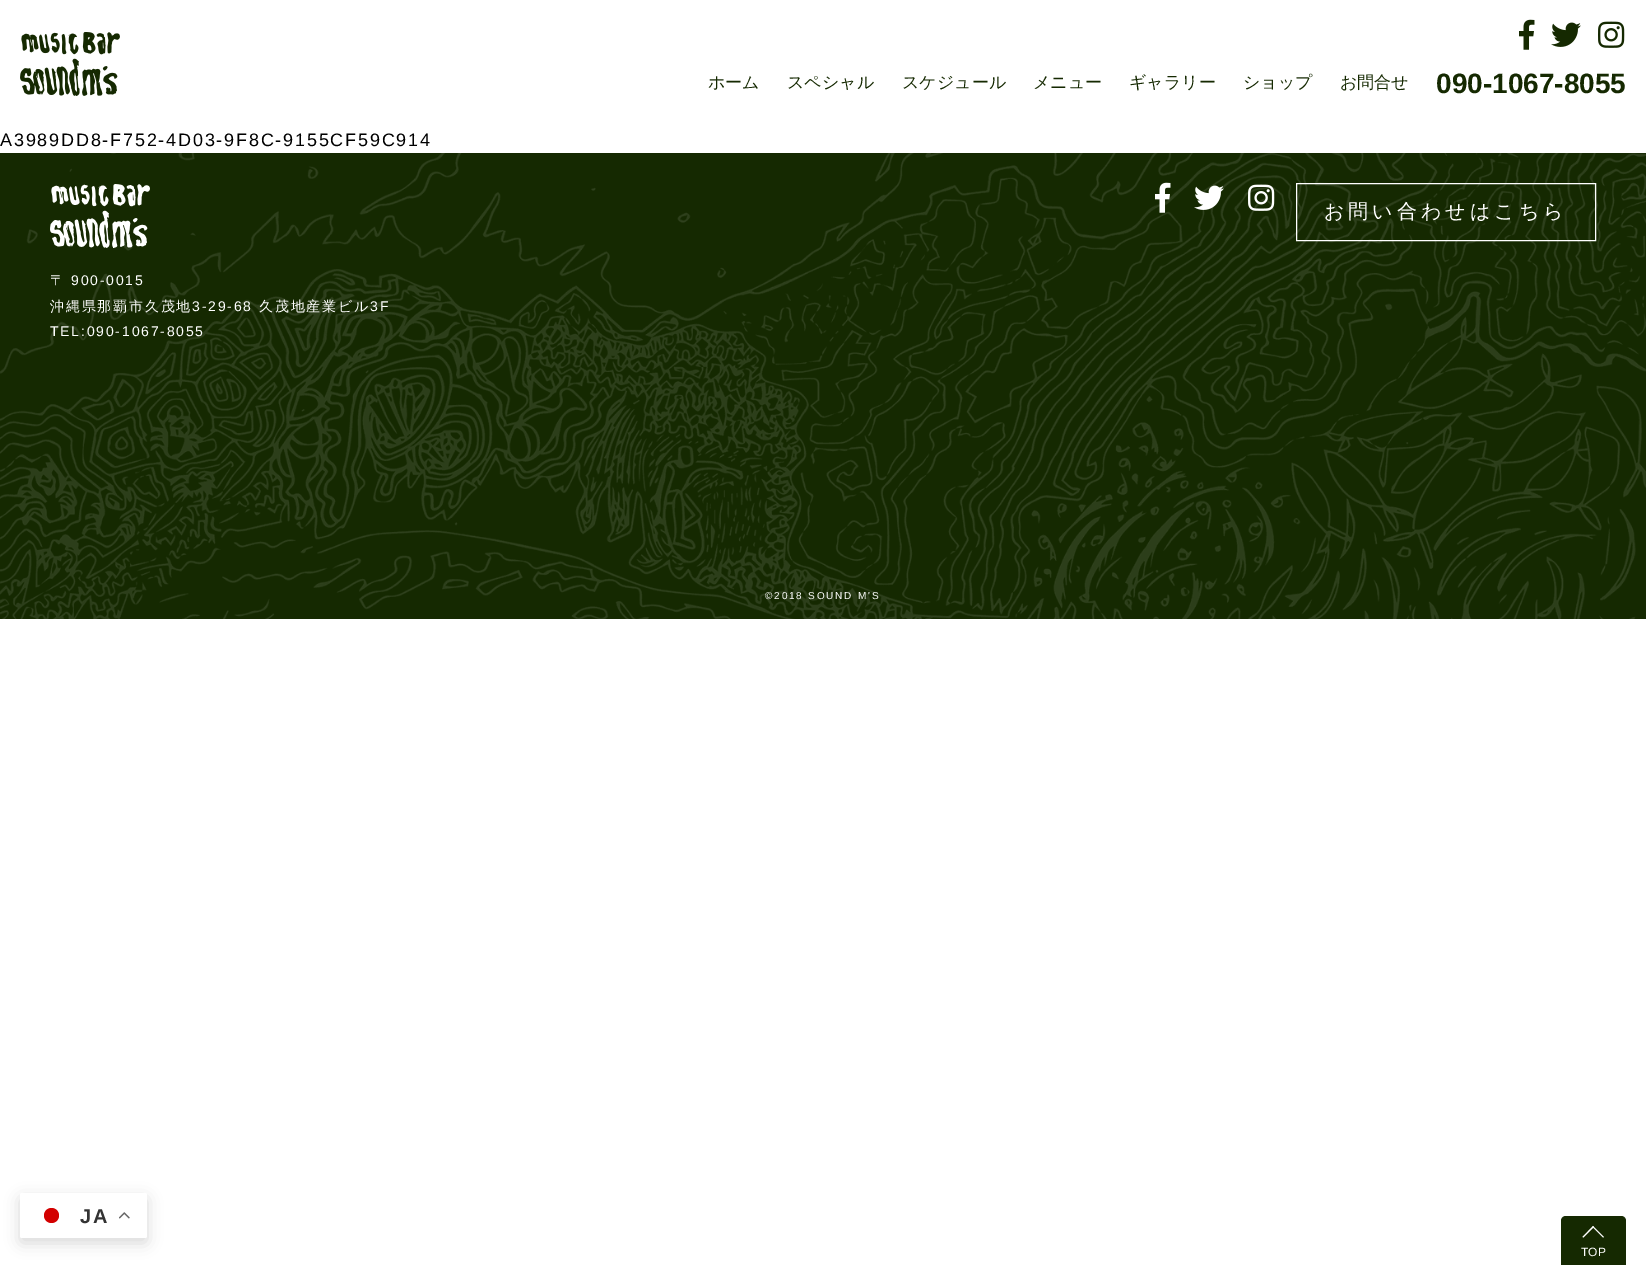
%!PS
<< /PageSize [1646 1265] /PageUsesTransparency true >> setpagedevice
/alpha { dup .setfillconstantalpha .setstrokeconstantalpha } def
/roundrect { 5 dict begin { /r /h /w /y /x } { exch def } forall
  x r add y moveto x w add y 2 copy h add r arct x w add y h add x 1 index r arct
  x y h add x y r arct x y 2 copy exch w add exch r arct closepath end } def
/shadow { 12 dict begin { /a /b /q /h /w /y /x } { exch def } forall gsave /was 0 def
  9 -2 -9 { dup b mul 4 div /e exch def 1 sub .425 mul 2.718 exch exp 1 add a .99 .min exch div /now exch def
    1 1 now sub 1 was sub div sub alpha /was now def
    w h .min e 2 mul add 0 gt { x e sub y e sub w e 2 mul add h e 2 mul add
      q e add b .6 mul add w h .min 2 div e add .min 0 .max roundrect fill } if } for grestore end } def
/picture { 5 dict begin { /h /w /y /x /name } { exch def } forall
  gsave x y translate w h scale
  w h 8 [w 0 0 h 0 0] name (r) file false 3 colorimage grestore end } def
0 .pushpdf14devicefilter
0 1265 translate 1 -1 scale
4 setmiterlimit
1 setgray
0 0 1646 1265 rectfill
(img1.rgb) 20 32 100 64 picture
/WenQuanYiZenHei-Medium [17 0 0 -17 0 0] selectfont
0.082 0.161 0.004 setrgbcolor
708 88 moveto (ホーム) show
787 88 moveto (スペシャル) show
902 88 moveto (スケジュール) show
1033 88 moveto (メニュー) show
1129 88 moveto (ギャラリー) show
1243 88 moveto (ショップ) show
1340 88 moveto (お問合せ) show
(img2.rgb) 1519 19 16 31 picture
(img3.rgb) 1551 22 30 25 picture
(img4.rgb) 1598 21 27 27 picture
/LiberationSans-Bold [28 0 0 -28 0 0] selectfont
1436 93 moveto (090-1067-8055) show
/LiberationSans-Regular [18 0 0 -18 0 0] selectfont
0 setgray
0 146 moveto 1.8 0 (A3989DD8-F752-4D03-9F8C-9155CF59C914) ashow
0.082 0.161 0.004 setrgbcolor
0 153 1646 466 rectfill
(img5.rgb) 0 153 1646 466 picture
(img6.rgb) 1155 182 16 31 picture
(img7.rgb) 1194 185 30 25 picture
(img8.rgb) 1248 184 27 27 picture
1 setgray
1296.5 183.5 299 57 rectstroke
/WenQuanYiZenHei-Medium [20 0 0 -20 0 0] selectfont
1324 218 moveto 4 0 (お問い合わせはこちら) ashow
(img9.rgb) 50 184 100 64 picture
/WenQuanYiZenHei-Medium [14 0 0 -14 0 0] selectfont
50 285 moveto 1.8 0 (〒) ashow
/LiberationSans-Regular [14 0 0 -14 0 0] selectfont
71 285 moveto 1.8 0 (900-0015) ashow
/WenQuanYiZenHei-Medium [14 0 0 -14 0 0] selectfont
50 311 moveto 1.8 0 (沖縄県那覇市久茂地) ashow
/LiberationSans-Regular [14 0 0 -14 0 0] selectfont
192 311 moveto 1.8 0 (3-29-68) ashow
/WenQuanYiZenHei-Medium [14 0 0 -14 0 0] selectfont
259 311 moveto 1.8 0 (久茂地産業ビル) ashow
/LiberationSans-Regular [14 0 0 -14 0 0] selectfont
370 311 moveto 1.8 0 (3F) ashow
50 336 moveto 1.8 0 (TEL:090-1067-8055) ashow
/LiberationSans-Regular [10 0 0 -10 0 0] selectfont
765 599 moveto 1.8 0 (©2018 SOUND M'S) ashow
0 setgray
20 1198 127 45 2 7.5 0.15 shadow
1 setgray
20 1193 127 45 2 roundrect fill
0.827 0 0 setrgbcolor
newpath 51.5 1215.5 7.5 0 360 arc closepath fill
/LiberationSans-Bold [20 0 0 -20 0 0] selectfont
0.2 setgray
80 1223 moveto 1.8 0 (JA) ashow
(img10.rgb) 119 1212 11 7 picture
0.082 0.161 0.004 setrgbcolor
newpath 1566 1216 moveto 1621 1216 lineto 1624 1216 1626 1218 1626 1221 curveto 1626 1265 lineto 1561 1265 lineto 1561 1221 lineto 1561 1218 1563 1216 1566 1216 curveto closepath fill
1 setgray
newpath 1593 1226 moveto 1604 1237 lineto 1603 1237.5 lineto 1592.5 1227 lineto closepath fill
newpath 1593 1226 moveto 1594 1227 lineto 1583.5 1237.5 lineto 1582.5 1237 lineto closepath fill
/LiberationSans-Regular [12 0 0 -12 0 0] selectfont
1581 1256 moveto (TOP) show
.poppdf14devicefilter showpage
